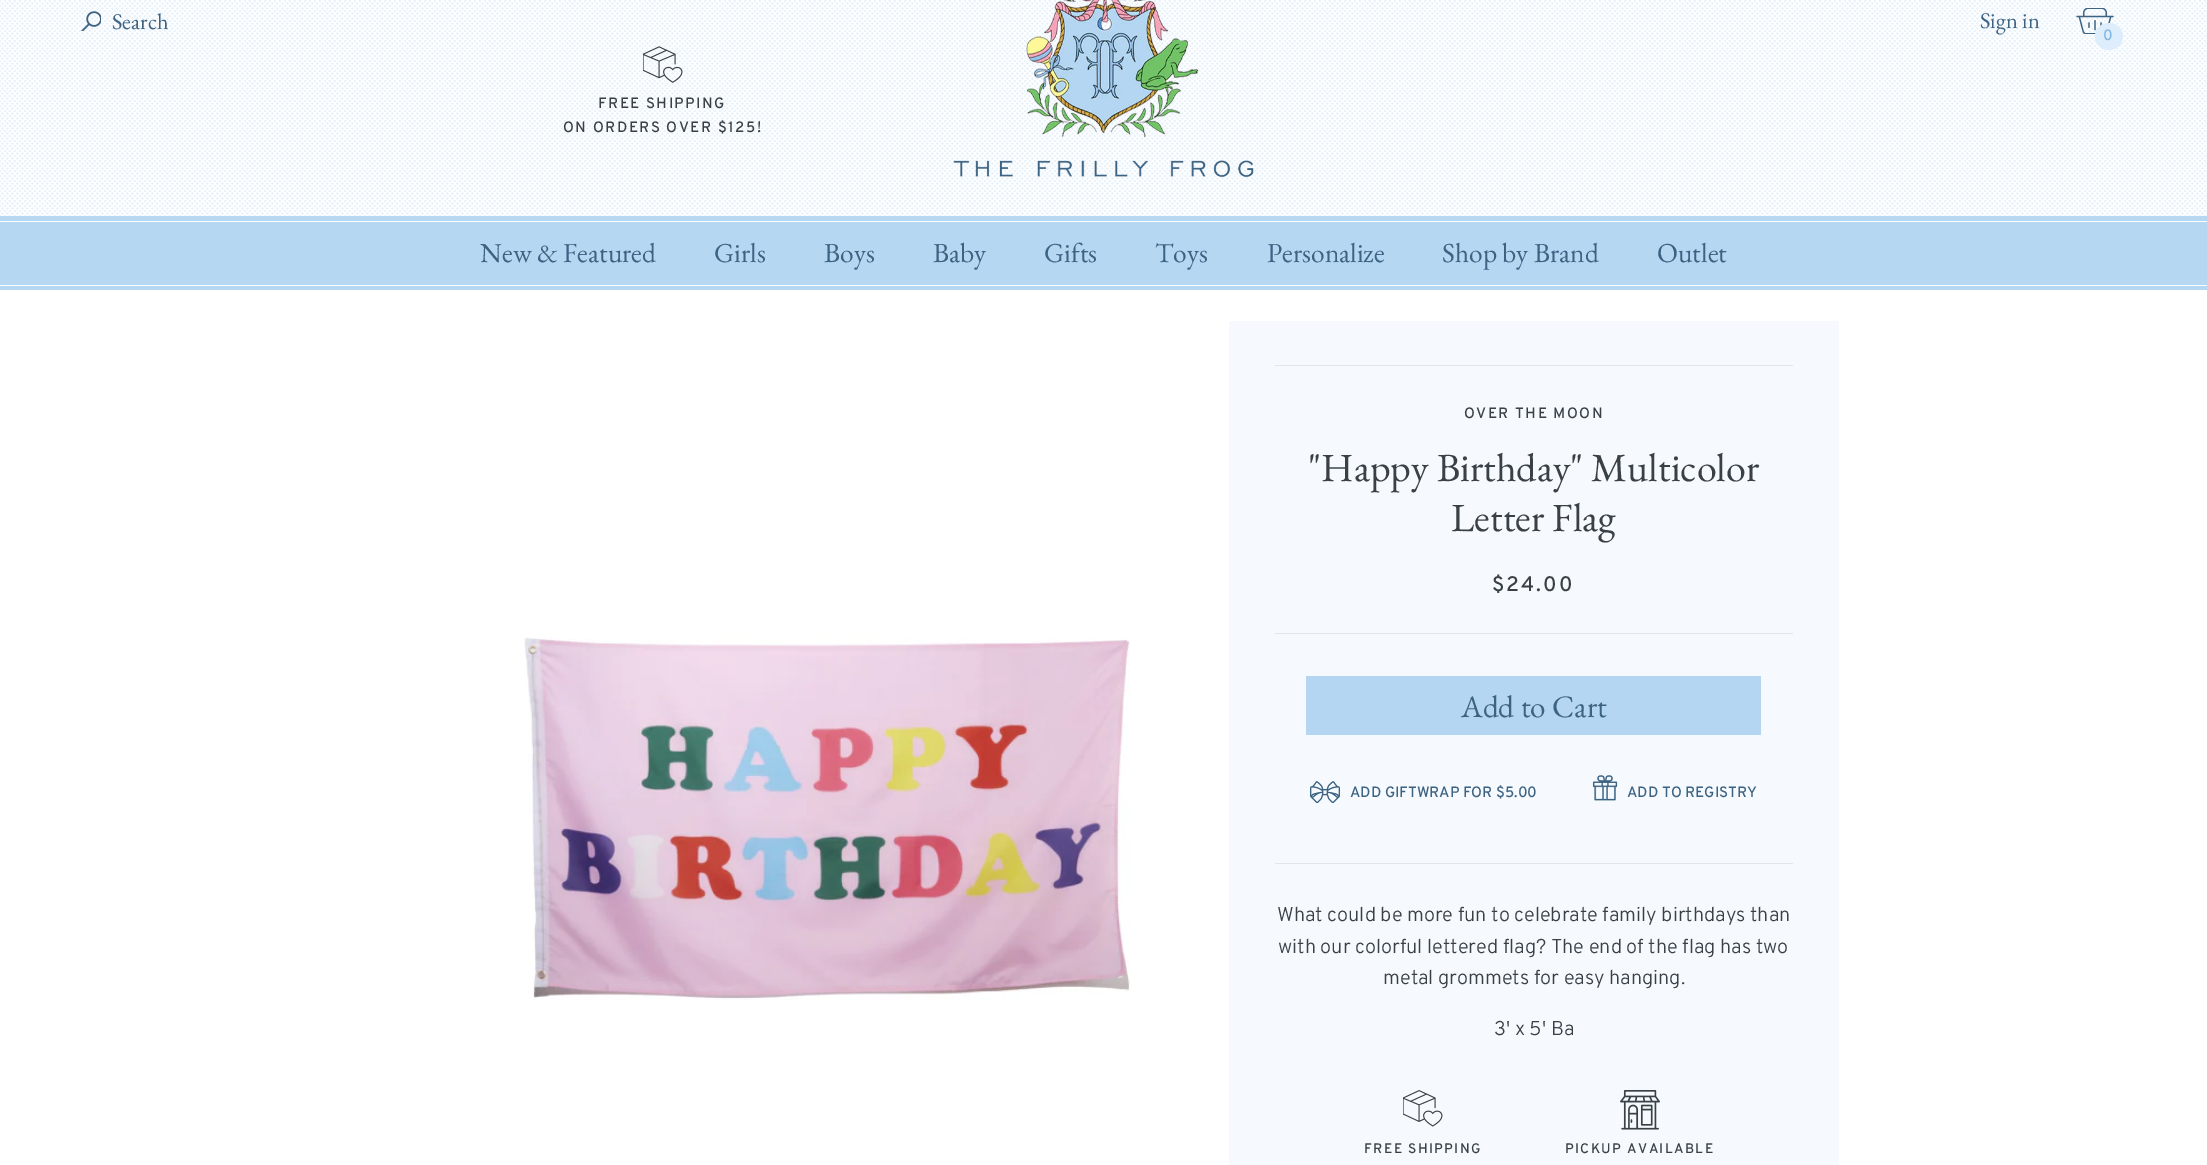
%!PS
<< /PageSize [2207 1165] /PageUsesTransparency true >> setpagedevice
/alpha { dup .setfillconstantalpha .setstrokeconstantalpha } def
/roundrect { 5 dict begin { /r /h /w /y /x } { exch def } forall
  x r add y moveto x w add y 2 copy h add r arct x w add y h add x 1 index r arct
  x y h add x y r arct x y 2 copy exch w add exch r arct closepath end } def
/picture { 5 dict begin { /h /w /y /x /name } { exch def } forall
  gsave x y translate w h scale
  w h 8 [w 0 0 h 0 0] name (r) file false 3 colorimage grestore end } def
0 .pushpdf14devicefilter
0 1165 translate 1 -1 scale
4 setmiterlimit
1 setgray
0 0 2207 1165 rectfill
(img1.rgb) 0 0 2207 290 picture
(img2.rgb) 81 11 20 20 picture
/EBGaramond-Regular [22.5 0 0 -22.5 0 0] selectfont
0.239 0.388 0.514 setrgbcolor
112 29 moveto (Search) show
(img3.rgb) 643 46 40 37 picture
/Overpass-Medium [15 0 0 -15 0 0] selectfont
0.224 0.255 0.278 setrgbcolor
598 108 moveto 1.5 0 (FREE SHIPPING) ashow
563 132 moveto 1.5 0 (ON ORDERS OVER $125!) ashow
(img4.rgb) 953 0 301 178 picture
/EBGaramond-Regular [22.5 0 0 -22.5 0 0] selectfont
0.239 0.388 0.514 setrgbcolor
1980 28 moveto (Sign in) show
(img5.rgb) 2076 8 38 26 picture
0.871 0.929 0.984 setrgbcolor
2095 23 28 27 13.5 roundrect fill
/Overpass-Medium [15 0 0 -15 0 0] selectfont
0.502 0.714 0.886 setrgbcolor
2103 40 moveto 1.5 0 (0) ashow
0.98 alpha
0.706 0.839 0.949 setrgbcolor
0 216 2207 74 rectfill
1 alpha
1 setgray
0 221 2207 1 rectfill
/EBGaramond-Regular [27.5 0 0 -27.5 0 0] selectfont
0.239 0.388 0.514 setrgbcolor
480 262 moveto (New & Featured) show
714 262 moveto (Girls) show
824 262 moveto (Boys) show
933 262 moveto (Baby) show
1044 262 moveto (Gifts) show
1155 262 moveto (Toys) show
1267 262 moveto (Personalize) show
1442 262 moveto (Shop by Brand) show
1657 262 moveto (Outlet) show
1 setgray
0 285 2207 1 rectfill
(img6.rgb) 524 637 606 363 picture
0.965 0.98 0.996 setrgbcolor
1229 321 610 844 rectfill
0.878 0.902 0.922 setrgbcolor
1275 365 518 1 rectfill
1275 633 518 1 rectfill
/Overpass-Medium [15 0 0 -15 0 0] selectfont
0.224 0.255 0.278 setrgbcolor
1464 418 moveto 1.5 0 (OVER THE MOON) ashow
/EBGaramond-Regular [40 0 0 -40 0 0] selectfont
1308 481 moveto ("Happy Birthday" Multicolor) show
1451 531 moveto (Letter Flag) show
/Overpass-Medium [21 0 0 -21 0 0] selectfont
1492 591 moveto 2 0 ($24.00) ashow
0.706 0.839 0.949 setrgbcolor
1306 676 455 59 rectfill
/EBGaramond-Regular [31.25 0 0 -31.25 0 0] selectfont
0.239 0.388 0.514 setrgbcolor
1461 717 moveto (Add to Cart) show
(img7.rgb) 1310 781 30 22 picture
/Overpass-Medium [15 0 0 -15 0 0] selectfont
1350 797 moveto (ADD GIFTWRAP FOR $5.00) show
(img8.rgb) 1592 775 26 26 picture
1627 797 moveto (ADD TO REGISTRY) show
0.878 0.902 0.922 setrgbcolor
1275 863 518 1 rectfill
/Overpass-Light [20 0 0 -20 0 0] selectfont
0.224 0.255 0.278 setrgbcolor
1277 921 moveto (What could be more fun to celebrate family birthdays than) show
1278 953 moveto (with our colorful lettered flag? The end of the flag has two) show
1383 984 moveto (metal grommets for easy hanging.) show
1494 1035 moveto (3' x 5' Ba) show
(img9.rgb) 1403 1090 40 37 picture
/Overpass-Medium [13.75 0 0 -13.75 0 0] selectfont
1364 1153 moveto 1.4 0 (FREE SHIPPING) ashow
(img10.rgb) 1620 1090 40 40 picture
1565 1153 moveto 1.4 0 (PICKUP AVAILABLE) ashow
.poppdf14devicefilter showpage
